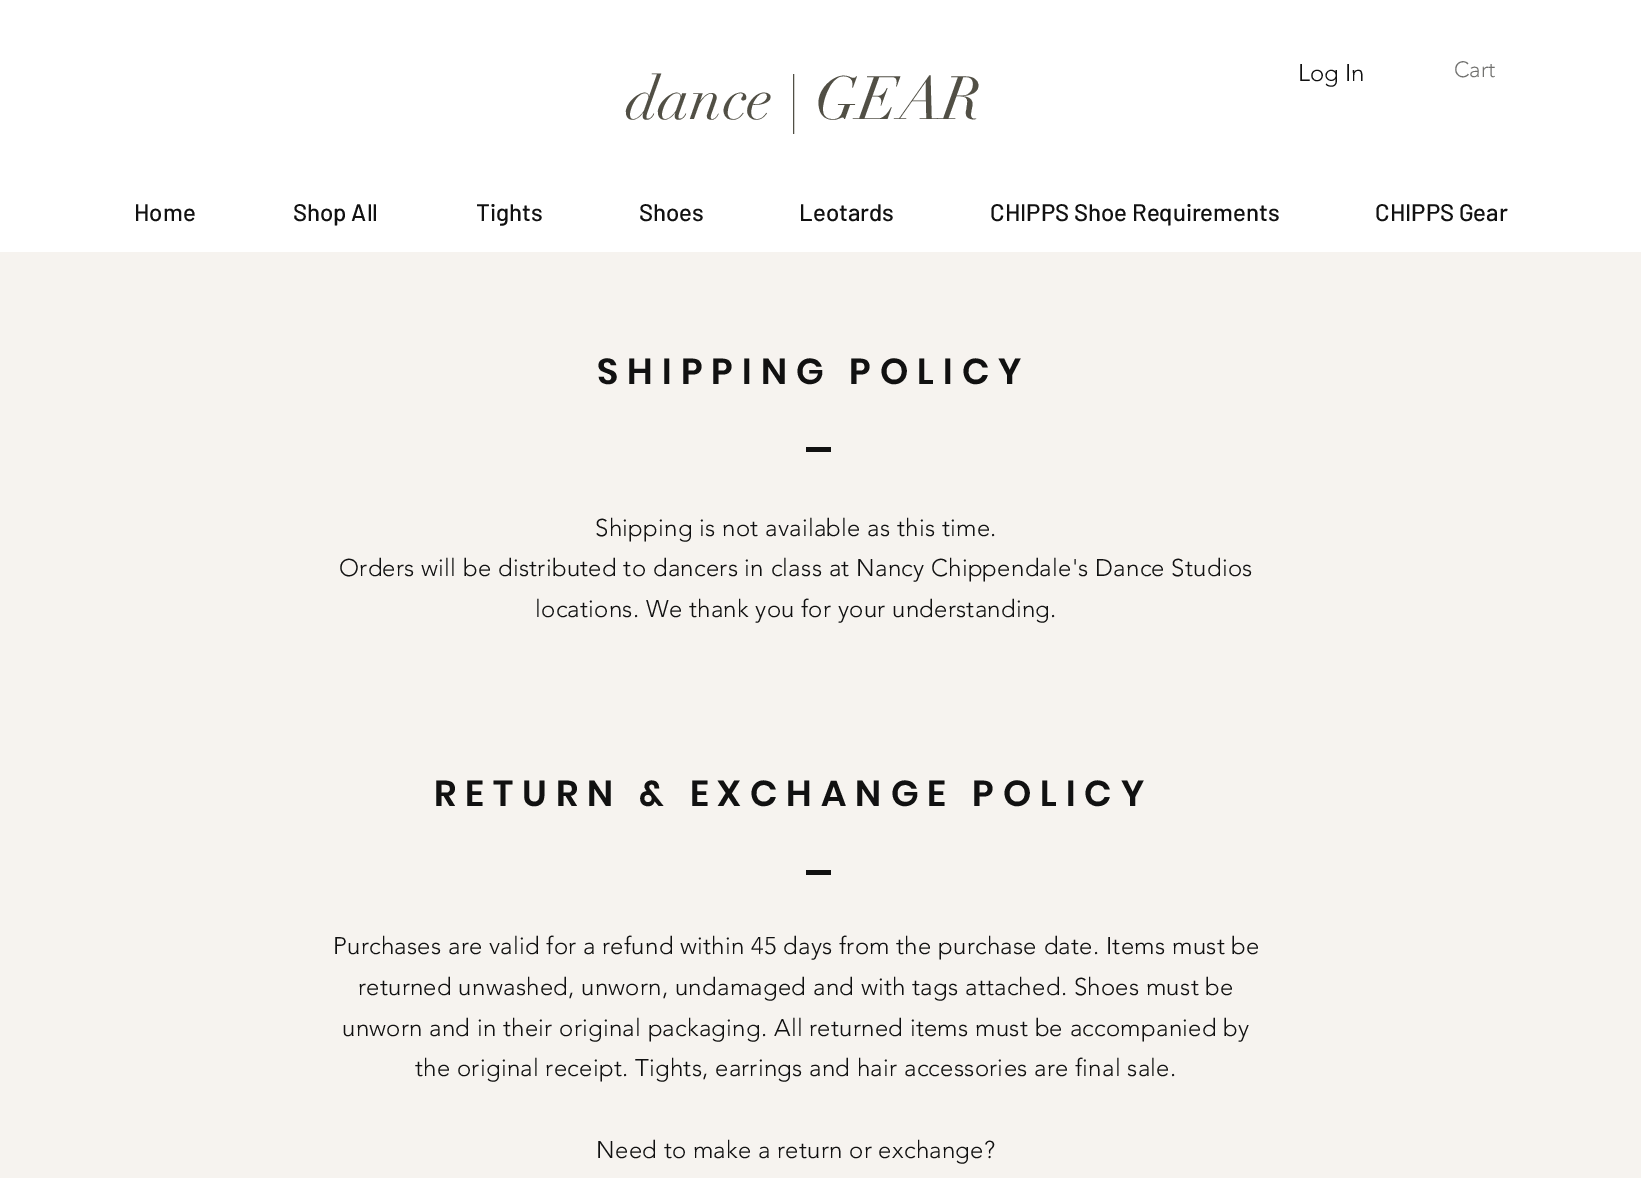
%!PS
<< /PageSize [1641 1178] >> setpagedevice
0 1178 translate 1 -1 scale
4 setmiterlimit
0.965 0.953 0.937 setrgbcolor
0 0 1641 1178 rectfill
1 setgray
0 0 1641 252 rectfill
/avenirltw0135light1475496-Light [24 0 0 -24 0 0] selectfont
0.067 setgray
1298 81 moveto (Log In) show
/avenirltw0135light1475496-Light [22 0 0 -22 0 0] selectfont
0.443 0.443 0.435 setrgbcolor
1454 77 moveto (Cart) show
/didot-Regular [60 0 0 -60 0 0] selectfont
0.318 0.31 0.271 setrgbcolor
626 119 moveto (dance | GEAR) show
/Barlow-Medium [24 0 0 -24 0 0] selectfont
0.067 setgray
134 221 moveto (Home) show
293 221 moveto (Shop All) show
476 221 moveto (Tights) show
639 221 moveto (Shoes) show
799 221 moveto (Leotards) show
990 221 moveto (CHIPPS Shoe Requirements) show
1375 221 moveto (CHIPPS Gear) show
/Poppins-SemiBold [36 0 0 -36 0 0] selectfont
597 384 moveto 9 0 (SHIPPING POLICY) ashow
806 447 25 5 rectfill
/avenirltw0135light1475496-Light [24 0 0 -24 0 0] selectfont
595 536 moveto 0.25 0 (Shipping is not available as this time.) ashow
339 576 moveto 0.25 0 (Orders will be distributed to dancers in class at Nancy Chippendale's Dance Studios) ashow
535 617 moveto 0.25 0 (locations. We thank you for your understanding.) ashow
/Poppins-SemiBold [36 0 0 -36 0 0] selectfont
434 806 moveto 9 0 (RETURN & EXCHANGE POLICY) ashow
806 870 25 5 rectfill
/avenirltw0135light1475496-Light [24 0 0 -24 0 0] selectfont
333 954 moveto 0.25 0 (Purchases are valid for a refund within 45 days from the purchase date. Items must be) ashow
358 995 moveto 0.25 0 (returned unwashed, unworn, undamaged and with tags attached. Shoes must be) ashow
342 1036 moveto 0.25 0 (unworn and in their original packaging. All returned items must be accompanied by) ashow
415 1076 moveto 0.25 0 (the original receipt. Tights, earrings and hair accessories are final sale.) ashow
596 1158 moveto 0.25 0 (Need to make a return or exchange?) ashow
showpage
